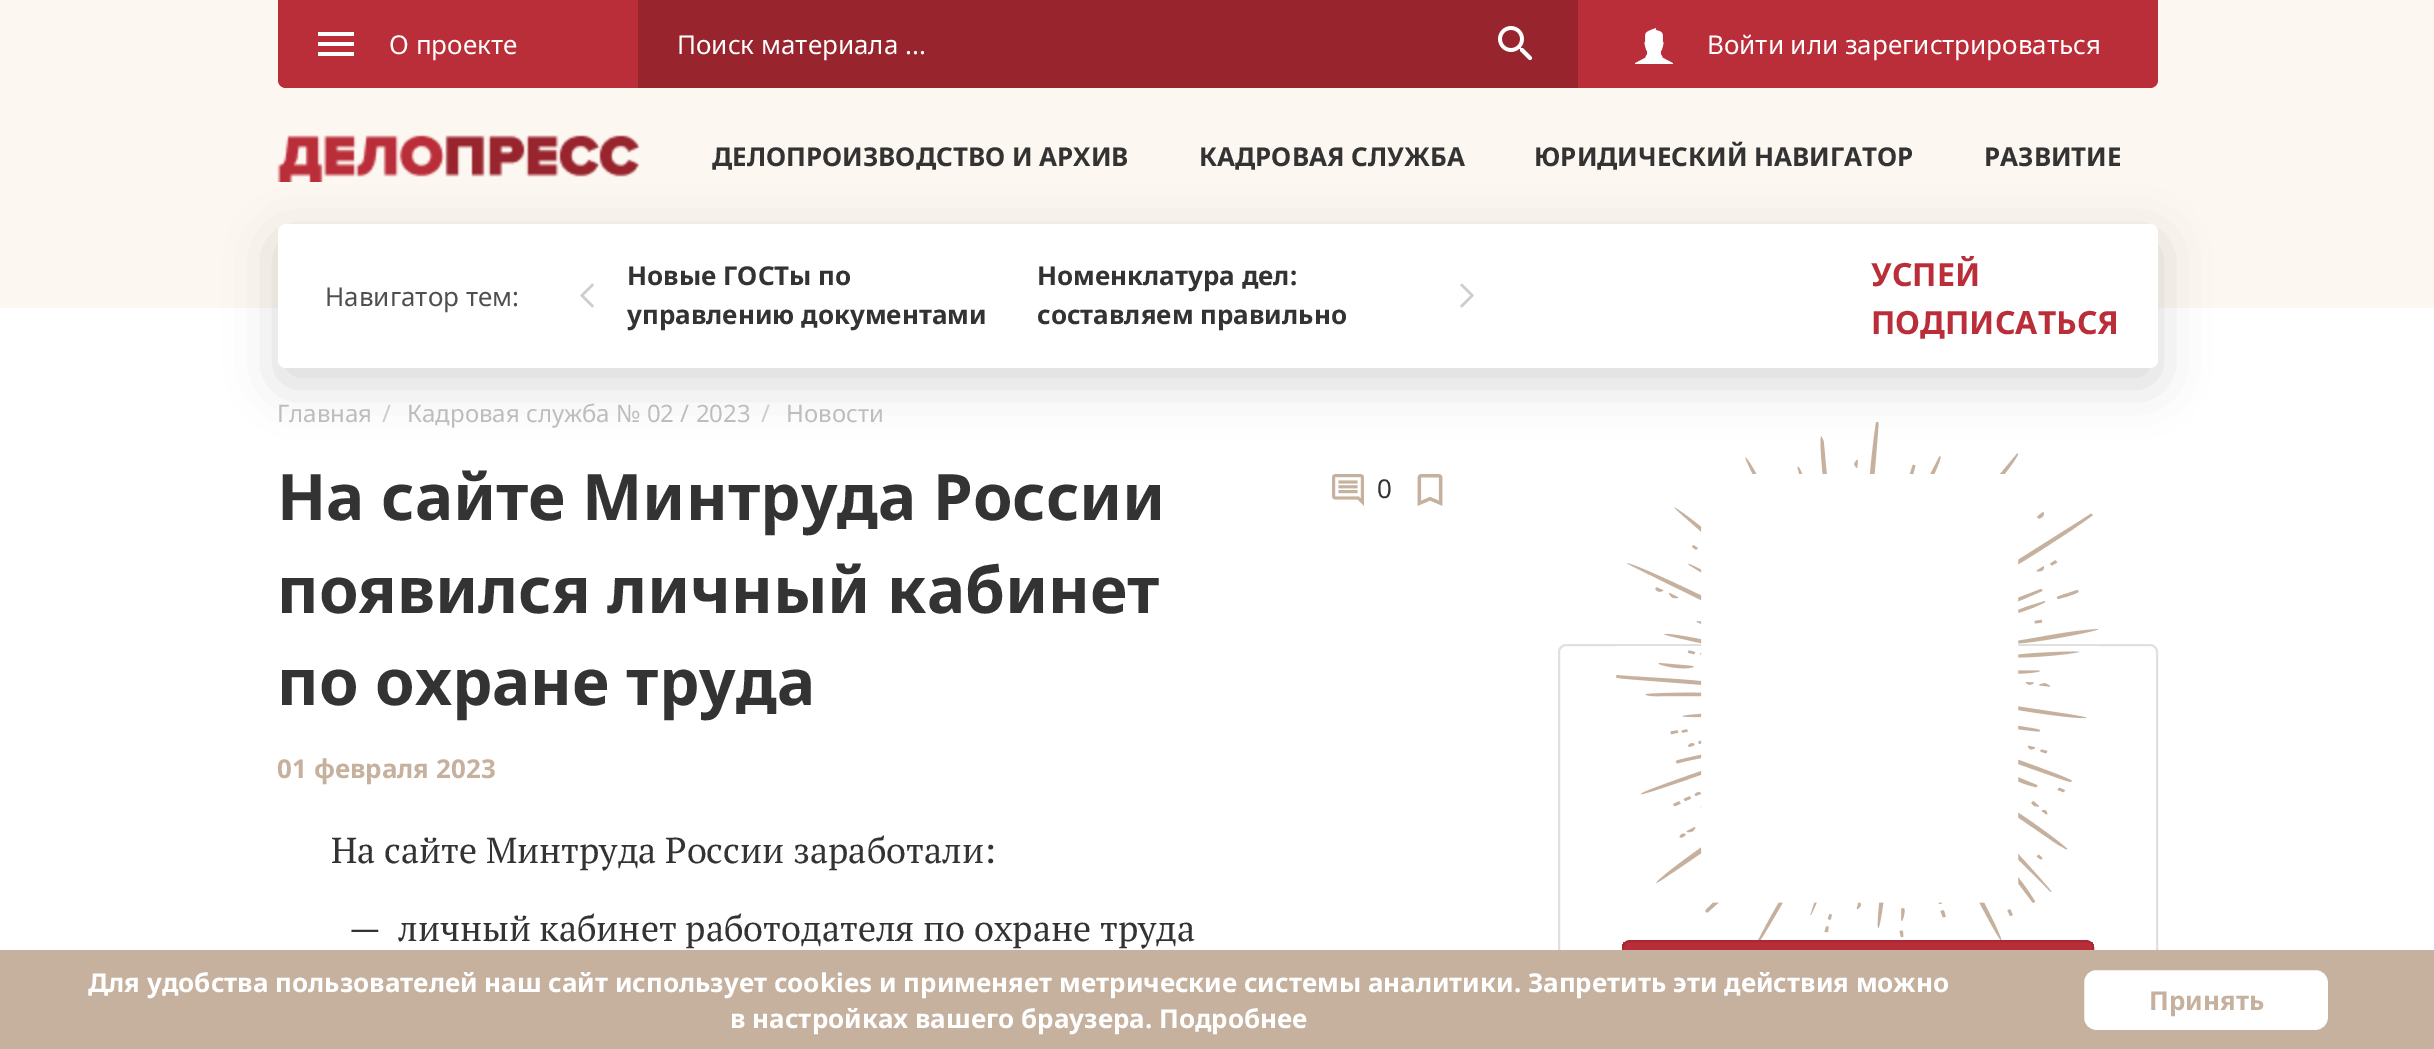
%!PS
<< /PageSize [2434 1049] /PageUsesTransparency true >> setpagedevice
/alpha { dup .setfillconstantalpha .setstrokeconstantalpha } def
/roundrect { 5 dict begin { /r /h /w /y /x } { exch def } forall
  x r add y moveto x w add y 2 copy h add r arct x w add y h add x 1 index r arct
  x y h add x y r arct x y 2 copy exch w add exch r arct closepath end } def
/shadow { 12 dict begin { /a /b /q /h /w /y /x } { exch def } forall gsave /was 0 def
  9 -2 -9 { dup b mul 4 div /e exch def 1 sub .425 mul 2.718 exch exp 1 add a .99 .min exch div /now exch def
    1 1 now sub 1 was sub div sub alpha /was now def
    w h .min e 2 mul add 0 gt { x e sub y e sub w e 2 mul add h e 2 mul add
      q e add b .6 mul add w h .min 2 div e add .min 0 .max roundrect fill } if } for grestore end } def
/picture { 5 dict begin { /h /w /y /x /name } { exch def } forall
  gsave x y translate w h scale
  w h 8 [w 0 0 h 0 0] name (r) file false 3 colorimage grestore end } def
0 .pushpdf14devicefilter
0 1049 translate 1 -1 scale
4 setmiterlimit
1 setgray
0 0 2434 1049 rectfill
0.988 0.969 0.945 setrgbcolor
0 0 2434 308 rectfill
0.729 0.18 0.227 setrgbcolor
newpath 278 0 moveto 638 0 lineto 638 88 lineto 286 88 lineto 281.5 88 278 84.5 278 80 curveto closepath fill
1 setgray
newpath 318 56 moveto 354 56 lineto 354 52 lineto 318 52 lineto closepath 318 46 moveto 354 46 lineto 354 42 lineto 318 42 lineto closepath 318 32 moveto 318 36 lineto 354 36 lineto 354 32 lineto closepath fill
/NotoSans-Regular [26 0 0 -26 0 0] selectfont
389 54 moveto (О проекте) show
0.596 0.141 0.18 setrgbcolor
638 0 940 88 rectfill
1 setgray
677 54 moveto (Поиск материала ...) show
(img1.rgb) 1498 26 35 35 picture
0.729 0.18 0.227 setrgbcolor
newpath 1578 0 moveto 2158 0 lineto 2158 80 lineto 2158 84.5 2154.5 88 2150 88 curveto 1578 88 lineto closepath fill
(img2.rgb) 1635 28 38 36 picture
1 setgray
1707 54 moveto (Войти или зарегистрироваться) show
0.878 setgray
2 setlinewidth
1559 645 598 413 7 roundrect stroke
(img8.rgb) 1616 422 482 518 picture
0 setgray
278 240 1880 144 8 25 0.15 shadow
(img3.rgb) 277 135 363 47 picture
/NotoSans-Bold [26 0 0 -26 0 0] selectfont
0.2 setgray
712 166 moveto (ДЕЛОПРОИЗВОДСТВО И АРХИВ) show
1199 166 moveto (КАДРОВАЯ СЛУЖБА) show
1534 166 moveto (ЮРИДИЧЕСКИЙ НАВИГАТОР) show
1984 166 moveto (РАЗВИТИЕ) show
1 setgray
278 224 1880 144 8 roundrect fill
/NotoSans-Regular [26 0 0 -26 0 0] selectfont
0.31 setgray
325 306 moveto (Навигатор тем:) show
(img4.rgb) 580 283 14 25 picture
/NotoSans-Bold [26 0 0 -26 0 0] selectfont
0.2 setgray
627 285 moveto (Новые ГОСТы по) show
627 324 moveto (управлению документами) show
1037 285 moveto (Номенклатура дел:) show
1037 324 moveto (составляем правильно) show
(img5.rgb) 1460 283 14 25 picture
/NotoSans-Bold [32 0 0 -32 0 0] selectfont
0.729 0.18 0.227 setrgbcolor
1871 286 moveto (УСПЕЙ) show
1871 334 moveto (ПОДПИСАТЬСЯ) show
/NotoSans-Regular [24 0 0 -24 0 0] selectfont
0.741 setgray
277 422 moveto (Главная) show
0.8 setgray
382 422 moveto (/) show
0.741 setgray
407 422 moveto (Кадровая служба № 02 / 2023) show
0.8 setgray
761 422 moveto (/) show
0.741 setgray
786 422 moveto (Новости) show
/NotoSans-Bold [64 0 0 -64 0 0] selectfont
0.2 setgray
277 520 moveto (На сайте Минтруда России) show
277 613 moveto (появился личный кабинет) show
277 705 moveto (по охране труда) show
(img6.rgb) 1332 474 32 32 picture
/NotoSans-Regular [26 0 0 -26 0 0] selectfont
1377 498 moveto (0) show
(img7.rgb) 1417 474 26 32 picture
/NotoSans-Bold [26 0 0 -26 0 0] selectfont
0.776 0.694 0.624 setrgbcolor
277 778 moveto (01 февраля 2023) show
/PTSerif-Regular [36 0 0 -36 0 0] selectfont
0.2 setgray
331 863 moveto (На сайте Минтруда России заработали:) show
349 941 moveto (—) show
398 941 moveto (личный кабинет работодателя по охране труда) show
gsave
1622 940 472 88 8 roundrect clip newpath
gsave newpath 1622 942 moveto 2094 942 lineto 2094 950 lineto 1622 950 lineto closepath clip newpath
<< /ShadingType 2 /ColorSpace /DeviceRGB /Coords [1858 942 1858 1026] /Extend [true true] /Function << /FunctionType 2 /Domain [0 1] /C0 [0.729 0.18 0.227] /C1 [0.643 0.149 0.192] /N 1 >> >> shfill grestore
grestore
0.651 0.161 0.204 setrgbcolor
1623 941 470 86 7 roundrect stroke
0.776 0.694 0.624 setrgbcolor
0 950 2434 99 rectfill
/NotoSans-Bold [26 0 0 -26 0 0] selectfont
1 setgray
88 992 moveto (Для удобства пользователей наш сайт использует cookies и применяет метрические системы аналитики. Запретить эти действия можно) show
730 1028 moveto (в настройках вашего браузера. Подробнее) show
2083 969 246 62 13 roundrect gsave fill grestore
0.776 0.694 0.624 setrgbcolor
stroke
2149 1010 moveto (Принять) show
.poppdf14devicefilter showpage
